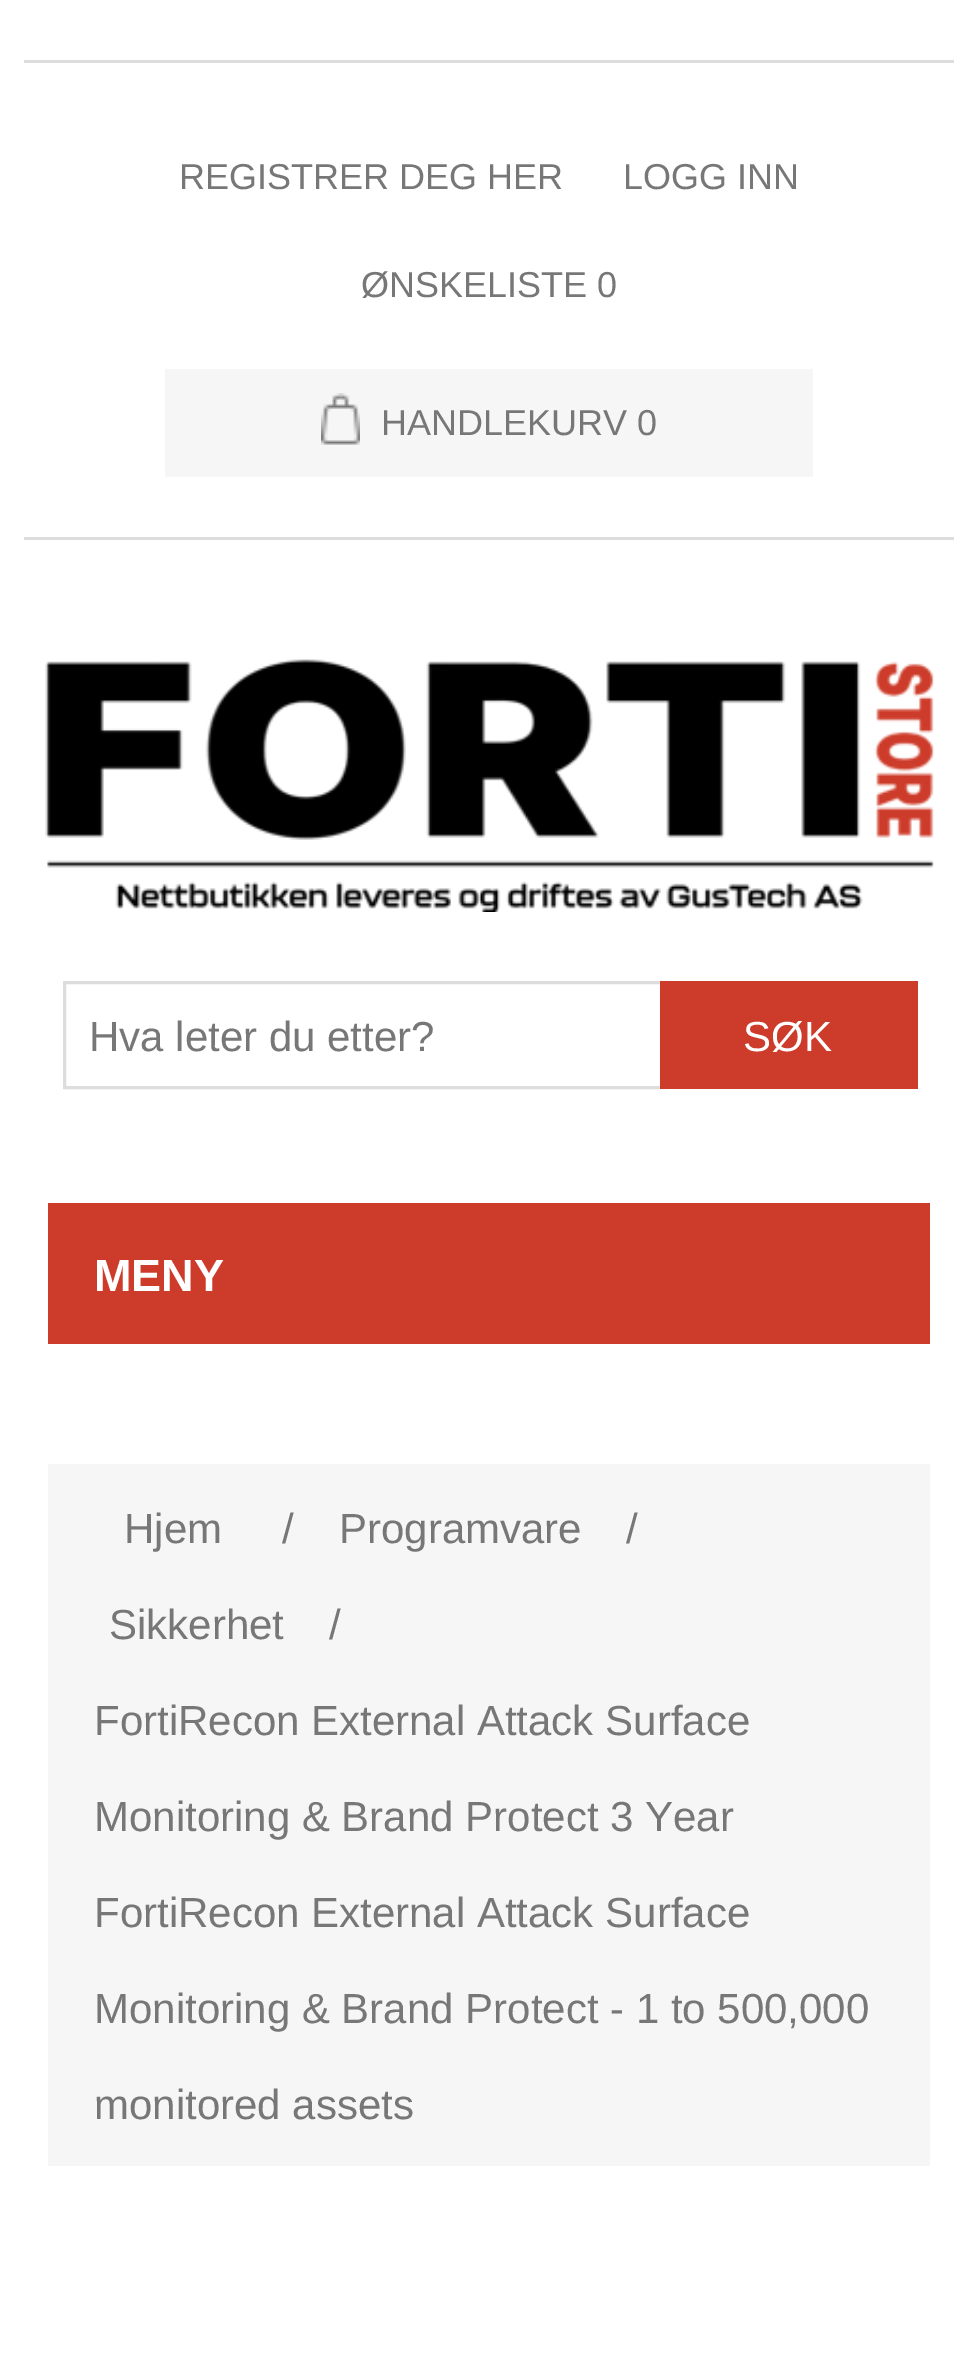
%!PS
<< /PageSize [977 2366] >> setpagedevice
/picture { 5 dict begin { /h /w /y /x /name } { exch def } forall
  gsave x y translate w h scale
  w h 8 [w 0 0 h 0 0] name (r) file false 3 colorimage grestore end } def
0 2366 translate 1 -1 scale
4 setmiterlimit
1 setgray
0 0 977 2366 rectfill
0.867 setgray
24 537 930 3 rectfill
24 60 930 3 rectfill
/LiberationSans-Regular [36 0 0 -36 0 0] selectfont
0.467 setgray
179 189 moveto (REGISTRER DEG HER) show
623 189 moveto (LOGG INN) show
361 297 moveto (ØNSKELISTE 0) show
0.965 setgray
165 369 648 108 rectfill
(img1.rgb) 321 393 39 52 picture
0.467 setgray
381 435 moveto (HANDLEKURV 0) show
(img2.rgb) 45 659 889 253 picture
0.867 setgray
3 setlinewidth
64.5 982.5 597 105 rectstroke
/LiberationSans-Regular [42 0 0 -42 0 0] selectfont
0.467 setgray
89 1051 moveto (Hva leter du etter?) show
0.804 0.235 0.169 setrgbcolor
660 981 258 108 rectfill
1 setgray
743 1051 moveto (SØK) show
0.804 0.235 0.169 setrgbcolor
48 1203 882 141 rectfill
/LiberationSans-Bold [45 0 0 -45 0 0] selectfont
1 setgray
94 1291 moveto (MENY) show
0.965 setgray
48 1464 882 702 rectfill
/LiberationSans-Regular [42 0 0 -42 0 0] selectfont
0.467 setgray
124 1543 moveto (Hjem) show
282 1543 moveto (/) show
339 1543 moveto (Programvare) show
626 1543 moveto (/) show
109 1639 moveto (Sikkerhet) show
329 1639 moveto (/) show
94 1735 moveto (FortiRecon External Attack Surface) show
94 1831 moveto (Monitoring & Brand Protect 3 Year) show
94 1927 moveto (FortiRecon External Attack Surface) show
94 2023 moveto (Monitoring & Brand Protect - 1 to 500,000) show
94 2119 moveto (monitored assets) show
showpage
